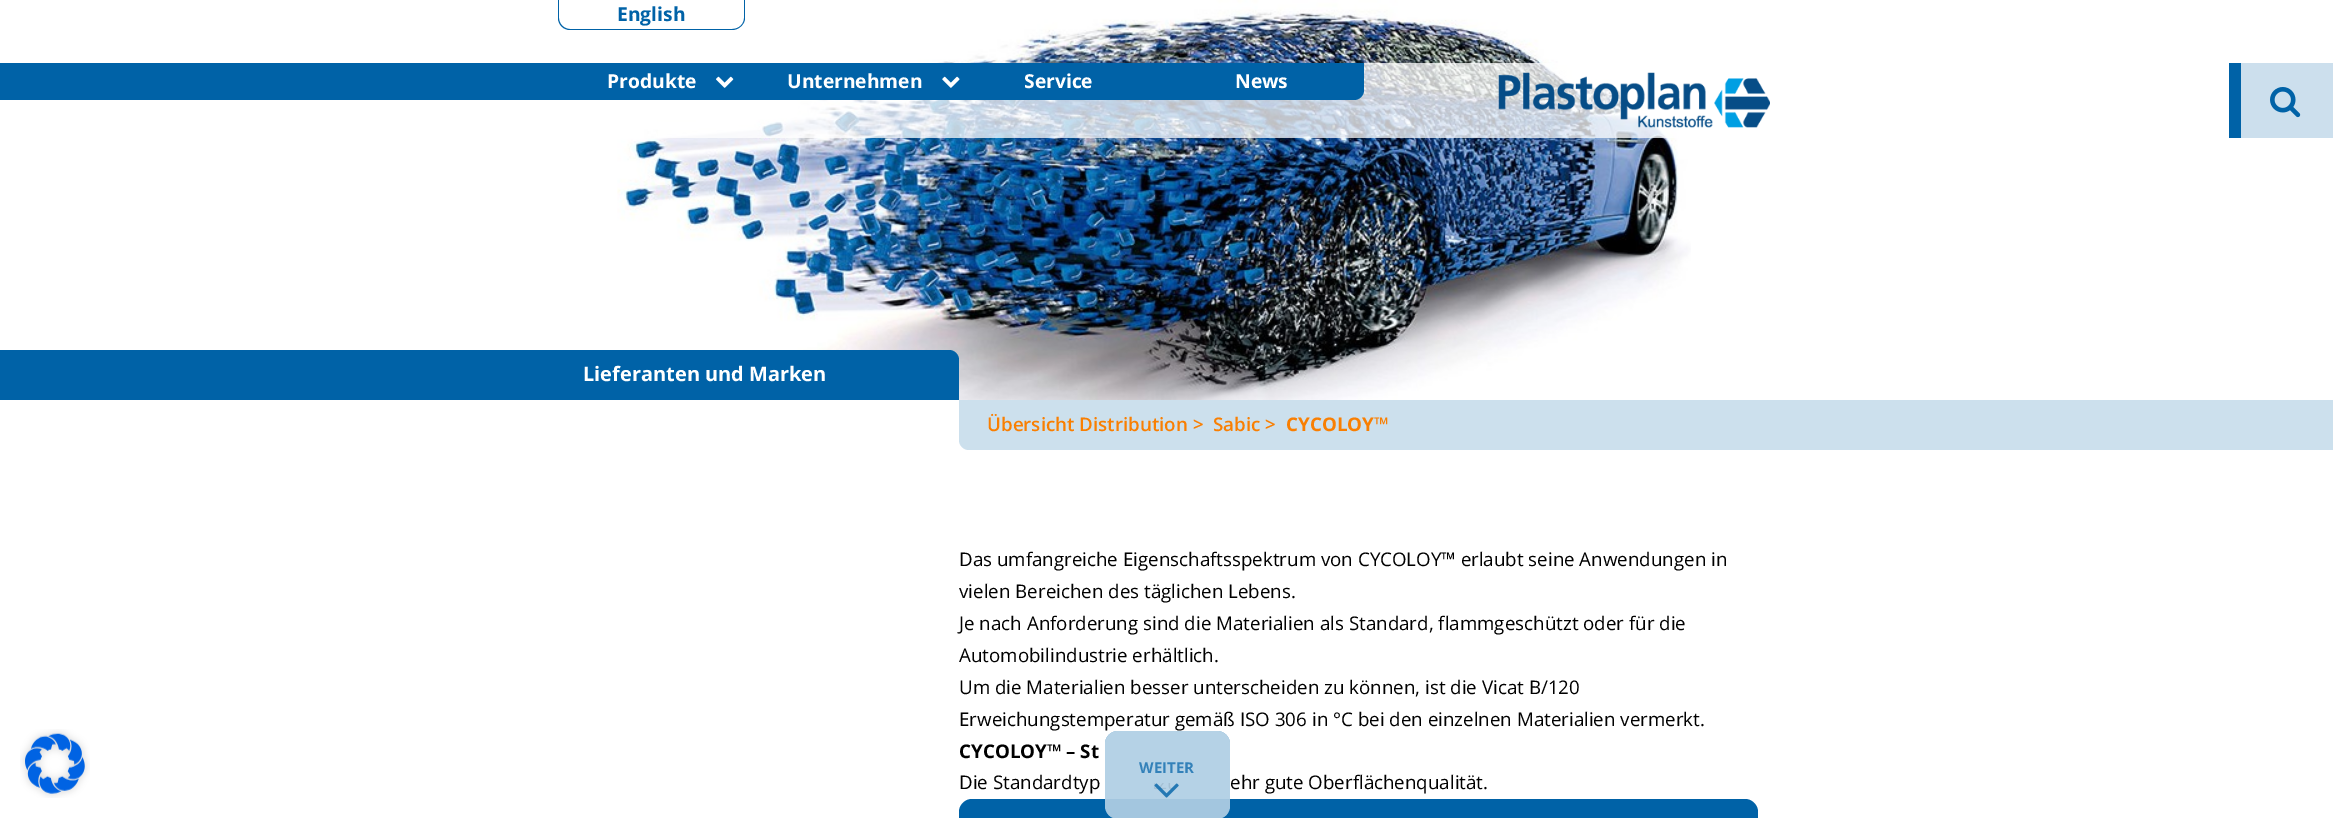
%!PS
<< /PageSize [2333 818] /PageUsesTransparency true >> setpagedevice
/alpha { dup .setfillconstantalpha .setstrokeconstantalpha } def
/roundrect { 5 dict begin { /r /h /w /y /x } { exch def } forall
  x r add y moveto x w add y 2 copy h add r arct x w add y h add x 1 index r arct
  x y h add x y r arct x y 2 copy exch w add exch r arct closepath end } def
/picture { 5 dict begin { /h /w /y /x /name } { exch def } forall
  gsave x y translate w h scale
  w h 8 [w 0 0 h 0 0] name (r) file false 3 colorimage grestore end } def
0 .pushpdf14devicefilter
0 818 translate 1 -1 scale
4 setmiterlimit
1 setgray
0 0 2333 818 rectfill
(img1.rgb) 617 0 1074 400 picture
0 0.384 0.655 setrgbcolor
0 350 558 50 rectfill
0.8 0.878 0.929 setrgbcolor
1776 400 557 50 rectfill
0 0.384 0.655 setrgbcolor
newpath 558 -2 moveto 745 -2 lineto 745 18 lineto 745 24 739 30 732 30 curveto 570 30 lineto 563 30 558 24 558 18 curveto closepath 559 -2 moveto 744 -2 lineto 744 18 lineto 744 24 739 29 732 29 curveto 570 29 lineto 564 29 559 24 559 18 curveto closepath eofill
/OpenSans-Bold [19.25 0 0 -19.25 0 0] selectfont
617 21 moveto (English) show
0.75 alpha
1 setgray
658 63 1020 75 rectfill
1 alpha
0 0.384 0.655 setrgbcolor
newpath 558 63 moveto 1364 63 lineto 1364 90 lineto 1364 95.5 1359.5 100 1354 100 curveto 558 100 lineto closepath fill
0 63 558 37 rectfill
1 setgray
607 88 moveto (Produkte) show
(img2.rgb) 716 76 18 12 picture
787 88 moveto (Unternehmen) show
(img3.rgb) 942 76 18 12 picture
1024 88 moveto (Service) show
1235 88 moveto (News) show
(img4.rgb) 1498 72 272 56 picture
0 0.384 0.655 setrgbcolor
2229 63 12 75 rectfill
0.8 0.875 0.929 setrgbcolor
2241 63 92 75 rectfill
(img5.rgb) 2270 87 31 31 picture
(img6.rgb) 20 729 70 69 picture
0 0.384 0.655 setrgbcolor
newpath 558 350 moveto 949 350 lineto 954.5 350 959 354.5 959 360 curveto 959 400 lineto 558 400 lineto closepath fill
/OpenSans-Bold [20 0 0 -20 0 0] selectfont
1 setgray
583 381 moveto (Lieferanten und Marken) show
0.8 0.878 0.929 setrgbcolor
newpath 959 400 moveto 1776 400 lineto 1776 450 lineto 969 450 lineto 963.5 450 959 445.5 959 440 curveto closepath fill
/OpenSans-SemiBold [18.75 0 0 -18.75 0 0] selectfont
0.976 0.498 0.008 setrgbcolor
987 431 moveto (Übersicht Distribution >) show
1213 431 moveto (Sabic >) show
/OpenSans-Bold [18.75 0 0 -18.75 0 0] selectfont
1286 431 moveto (CYCOLOY™) show
/OpenSans-Regular [18.75 0 0 -18.75 0 0] selectfont
0 setgray
959 566 moveto (Das umfangreiche Eigenschaftsspektrum von CYCOLOY™ erlaubt seine Anwendungen in) show
959 598 moveto (vielen Bereichen des täglichen Lebens.) show
959 630 moveto (Je nach Anforderung sind die Materialien als Standard, flammgeschützt oder für die) show
959 662 moveto (Automobilindustrie erhältlich.) show
959 694 moveto (Um die Materialien besser unterscheiden zu können, ist die Vicat B/120) show
959 726 moveto (Erweichungstemperatur gemäß ISO 306 in °C bei den einzelnen Materialien vermerkt.) show
/OpenSans-Bold [18.75 0 0 -18.75 0 0] selectfont
959 758 moveto (CYCOLOY™ – St) show
/OpenSans-Regular [18.75 0 0 -18.75 0 0] selectfont
959 789 moveto (Die Standardtyp) show
1230 789 moveto (ehr gute Oberflächenqualität.) show
0 0.384 0.655 setrgbcolor
newpath 972 799 moveto 1143 799 lineto 1143 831 lineto 959 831 lineto 959 812 lineto 959 805 965 799 972 799 curveto closepath fill
1143 799 121 19 rectfill
newpath 1264 799 moveto 1745 799 lineto 1752 799 1758 805 1758 812 curveto 1758 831 lineto 1264 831 lineto closepath fill
0.8 alpha
1105 731 125 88 13 roundrect fill
0.64 alpha
1 setgray
1105 731 125 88 13 roundrect fill
/OpenSans-Bold [15 0 0 -15 0 0] selectfont
1 alpha
0.2 0.506 0.725 setrgbcolor
1139 773 moveto (WEITER) show
(img7.rgb) 1154 783 25 15 picture
.poppdf14devicefilter showpage
